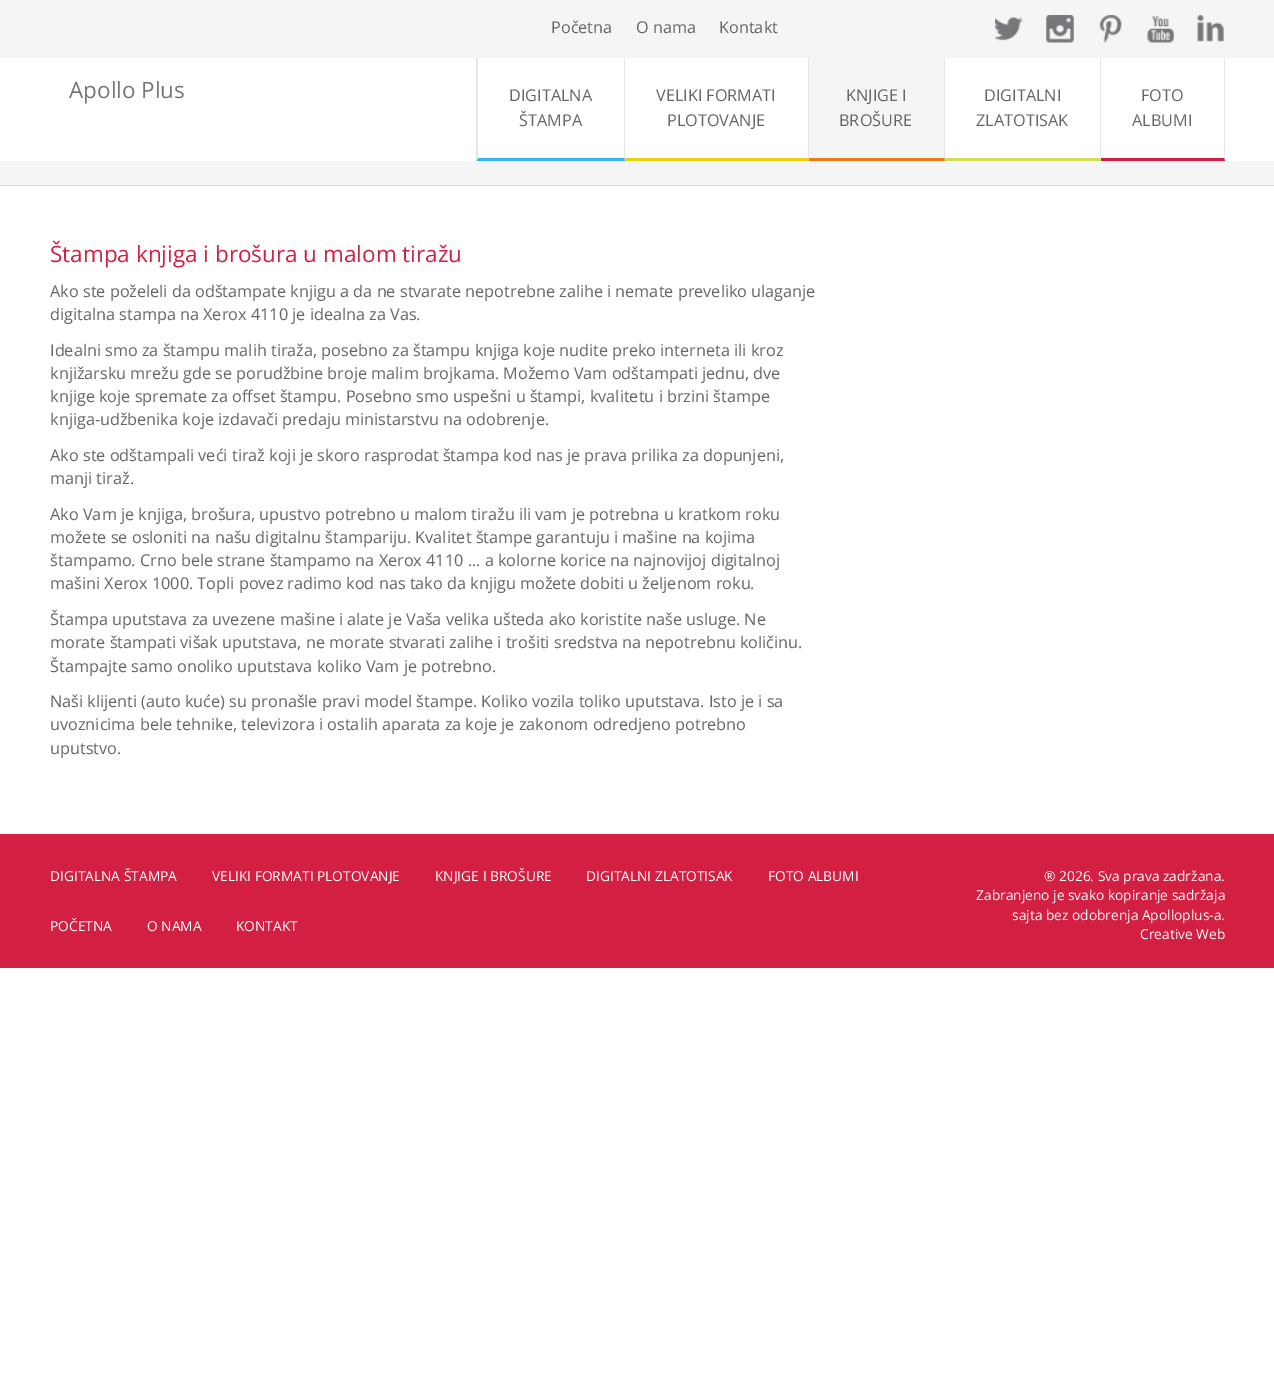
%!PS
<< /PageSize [1274 1379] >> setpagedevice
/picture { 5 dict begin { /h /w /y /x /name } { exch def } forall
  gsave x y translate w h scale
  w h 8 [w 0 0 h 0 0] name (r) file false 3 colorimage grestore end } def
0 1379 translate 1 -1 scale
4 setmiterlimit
1 setgray
0 0 1274 1379 rectfill
0.961 setgray
0 0 1274 58 rectfill
/OpenSans-Regular [16.25 0 0 -16.25 0 0] selectfont
0.4 setgray
551 33 moveto (Početna) show
636 33 moveto (O nama) show
719 33 moveto (Kontakt) show
(img1.rgb) 995 17 28 24 picture
(img2.rgb) 1046 15 28 28 picture
(img3.rgb) 1099 15 23 28 picture
(img4.rgb) 1147 16 27 27 picture
(img5.rgb) 1197 15 27 27 picture
/OpenSans-Regular [22.5 0 0 -22.5 0 0] selectfont
0.467 setgray
69 98 moveto (Apollo Plus) show
0.902 setgray
newpath 625 58 moveto 625 161 lineto 624 158 lineto 624 58 lineto closepath fill
0.212 0.714 0.933 setrgbcolor
newpath 625 161 moveto 476 161 lineto 478 158 lineto 624 158 lineto closepath fill
0.902 setgray
newpath 476 161 moveto 476 58 lineto 478 58 lineto 478 158 lineto closepath fill
/OpenSans-Regular [16.25 0 0 -16.25 0 0] selectfont
0.4 setgray
509 101 moveto (DIGITALNA) show
519 126 moveto (ŠTAMPA) show
0.902 setgray
newpath 809 58 moveto 809 161 lineto 808 158 lineto 808 58 lineto closepath fill
0.929 0.816 0.059 setrgbcolor
newpath 809 161 moveto 625 161 lineto 625 158 lineto 808 158 lineto closepath fill
0.4 setgray
656 101 moveto (VELIKI FORMATI) show
667 126 moveto (PLOTOVANJE) show
0.961 setgray
809 58 136 103 rectfill
0.902 setgray
newpath 945 58 moveto 945 161 lineto 944 158 lineto 944 58 lineto closepath fill
0.937 0.482 0.094 setrgbcolor
newpath 945 161 moveto 809 161 lineto 809 158 lineto 944 158 lineto closepath fill
0.4 setgray
846 101 moveto (KNJIGE I) show
839 126 moveto (BROŠURE) show
0.902 setgray
newpath 1101 58 moveto 1101 161 lineto 1100 158 lineto 1100 58 lineto closepath fill
0.831 0.863 0.322 setrgbcolor
newpath 1101 161 moveto 945 161 lineto 945 158 lineto 1100 158 lineto closepath fill
0.4 setgray
984 101 moveto (DIGITALNI) show
976 126 moveto (ZLATOTISAK) show
0.902 setgray
newpath 1225 58 moveto 1225 161 lineto 1224 158 lineto 1224 58 lineto closepath fill
0.824 0.122 0.259 setrgbcolor
newpath 1225 161 moveto 1101 161 lineto 1101 158 lineto 1224 158 lineto closepath fill
0.4 setgray
1141 101 moveto (FOTO) show
1132 126 moveto (ALBUMI) show
0.961 setgray
0 161 1274 24 rectfill
0.851 setgray
0 185 1274 1 rectfill
/OpenSans-Regular [22.5 0 0 -22.5 0 0] selectfont
0.824 0.122 0.259 setrgbcolor
50 262 moveto (Štampa knjiga i brošura u malom tiražu) show
/OpenSans-Regular [16.25 0 0 -16.25 0 0] selectfont
0.4 setgray
50 297 moveto (Ako ste poželeli da odštampate knjigu a da ne stvarate nepotrebne zalihe i nemate preveliko ulaganje) show
50 320 moveto (digitalna stampa na Xerox 4110 je idealna za Vas.) show
50 356 moveto (Idealni smo za štampu malih tiraža, posebno za štampu knjiga koje nudite preko interneta ili kroz) show
50 379 moveto (knjižarsku mrežu gde se porudžbine broje malim brojkama. Možemo Vam odštampati jednu, dve) show
50 402 moveto (knjige koje spremate za offset štampu. Posebno smo uspešni u štampi, kvalitetu i brzini štampe) show
50 425 moveto (knjiga-udžbenika koje izdavači predaju ministarstvu na odobrenje.) show
50 461 moveto (Ako ste odštampali veći tiraž koji je skoro rasprodat štampa kod nas je prava prilika za dopunjeni,) show
50 484 moveto (manji tiraž.) show
50 520 moveto (Ako Vam je knjiga, brošura, upustvo potrebno u malom tiražu ili vam je potrebna u kratkom roku) show
50 543 moveto (možete se osloniti na našu digitalnu štampariju. Kvalitet štampe garantuju i mašine na kojima) show
50 566 moveto (štampamo. Crno bele strane štampamo na Xerox 4110 ... a kolorne korice na najnovijoj digitalnoj) show
50 589 moveto (mašini Xerox 1000. Topli povez radimo kod nas tako da knjigu možete dobiti u željenom roku.) show
50 625 moveto (Štampa uputstava za uvezene mašine i alate je Vaša velika ušteda ako koristite naše usluge. Ne) show
50 648 moveto (morate štampati višak uputstava, ne morate stvarati zalihe i trošiti sredstva na nepotrebnu količinu.) show
50 672 moveto (Štampajte samo onoliko uputstava koliko Vam je potrebno.) show
50 707 moveto (Naši klijenti \(auto kuće\) su pronašle pravi model štampe. Koliko vozila toliko uputstava. Isto je i sa) show
50 730 moveto (uvoznicima bele tehnike, televizora i ostalih aparata za koje je zakonom odredjeno potrebno) show
50 754 moveto (uputstvo.) show
0.824 0.122 0.259 setrgbcolor
0 834 1274 134 rectfill
/OpenSans-Regular [13.75 0 0 -13.75 0 0] selectfont
1 setgray
50 881 moveto (DIGITALNA ŠTAMPA) show
212 881 moveto (VELIKI FORMATI PLOTOVANJE) show
435 881 moveto (KNJIGE I BROŠURE) show
586 881 moveto (DIGITALNI ZLATOTISAK) show
768 881 moveto (FOTO ALBUMI) show
50 931 moveto (POČETNA) show
147 931 moveto (O NAMA) show
236 931 moveto (KONTAKT) show
1044 881 moveto (® 2026. Sva prava zadržana.) show
976 900 moveto (Zabranjeno je svako kopiranje sadržaja) show
1012 920 moveto (sajta bez odobrenja Apolloplus-a.) show
1140 939 moveto (Creative Web) show
showpage
